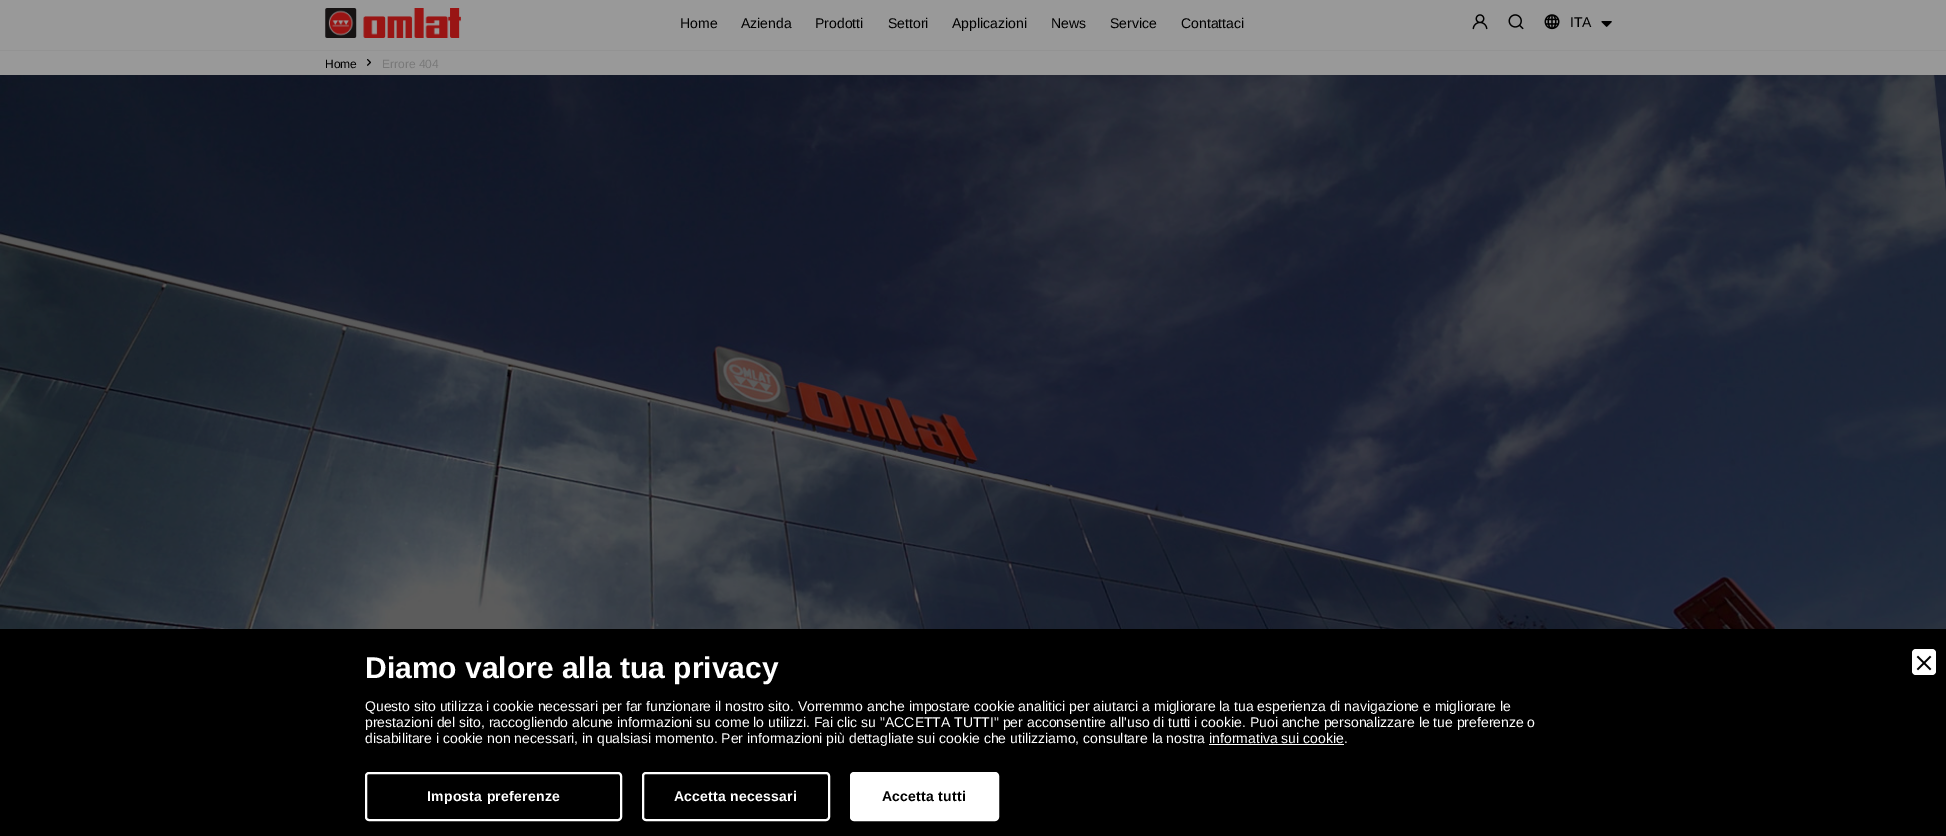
%!PS
<< /PageSize [1946 836] /PageUsesTransparency true >> setpagedevice
/alpha { dup .setfillconstantalpha .setstrokeconstantalpha } def
/roundrect { 5 dict begin { /r /h /w /y /x } { exch def } forall
  x r add y moveto x w add y 2 copy h add r arct x w add y h add x 1 index r arct
  x y h add x y r arct x y 2 copy exch w add exch r arct closepath end } def
/picture { 5 dict begin { /h /w /y /x /name } { exch def } forall
  gsave x y translate w h scale
  w h 8 [w 0 0 h 0 0] name (r) file false 3 colorimage grestore end } def
0 .pushpdf14devicefilter
0 836 translate 1 -1 scale
4 setmiterlimit
0.6 setgray
0 0 1946 836 rectfill
(img1.rgb) 325 8 136 30 picture
/LiberationSans-Regular [14 0 0 -14 0 0] selectfont
0 setgray
680 28 moveto (Home) show
741 28 moveto (Azienda) show
815 28 moveto (Prodotti) show
888 28 moveto (Settori) show
952 28 moveto (Applicazioni) show
1051 28 moveto (News) show
1110 28 moveto (Service) show
1181 28 moveto (Contattaci) show
(img2.rgb) 1472 14 16 16 picture
(img3.rgb) 1508 14 16 16 picture
(img4.rgb) 1544 14 16 16 picture
1570 27 moveto (ITA) show
(img5.rgb) 1601 21 11 6 picture
0.576 setgray
0 50 1946 1 rectfill
/LiberationSans-Regular [12 0 0 -12 0 0] selectfont
0 setgray
325 68 moveto (Home) show
(img6.rgb) 367 59 4 7 picture
0.475 setgray
382 68 moveto (Errore 404) show
(img7.rgb) 0 75 1946 554 picture
0.4 alpha
0 setgray
0 75 1946 554 rectfill
1 alpha
0 629 1946 207 rectfill
/LiberationSans-Bold [30 0 0 -30 0 0] selectfont
1 setgray
365 678 moveto (Diamo valore alla tua privacy) show
1912 649 24 26 4 roundrect fill
(img8.rgb) 1916 655 16 16 picture
/LiberationSans-Regular [14 0 0 -14 0 0] selectfont
365 711 moveto (Questo sito utilizza i cookie necessari per far funzionare il nostro sito. Vorremmo anche impostare cookie analitici per aiutarci a migliorare la tua esperienza di navigazione e migliorare le) show
365 727 moveto (prestazioni del sito, raccogliendo alcune informazioni su come lo utilizzi. Fai clic su "ACCETTA TUTTI" per acconsentire all'uso di tutti i cookie. Puoi anche personalizzare le tue preferenze o) show
365 743 moveto (disabilitare i cookie non necessari, in qualsiasi momento. Per informazioni più dettagliate sui cookie che utilizziamo, consultare la nostra informativa sui cookie.) show
1209 744 135 1 rectfill
2 setlinewidth
366 773 255 47 3 roundrect stroke
/LiberationSans-Bold [14 0 0 -14 0 0] selectfont
427 801 moveto 0.25 0 (Imposta preferenze) ashow
643 773 186 47 3 roundrect stroke
674 801 moveto 0.25 0 (Accetta necessari) ashow
851 773 147 47 3 roundrect gsave fill grestore
stroke
0 setgray
882 801 moveto 0.25 0 (Accetta tutti) ashow
.poppdf14devicefilter showpage
